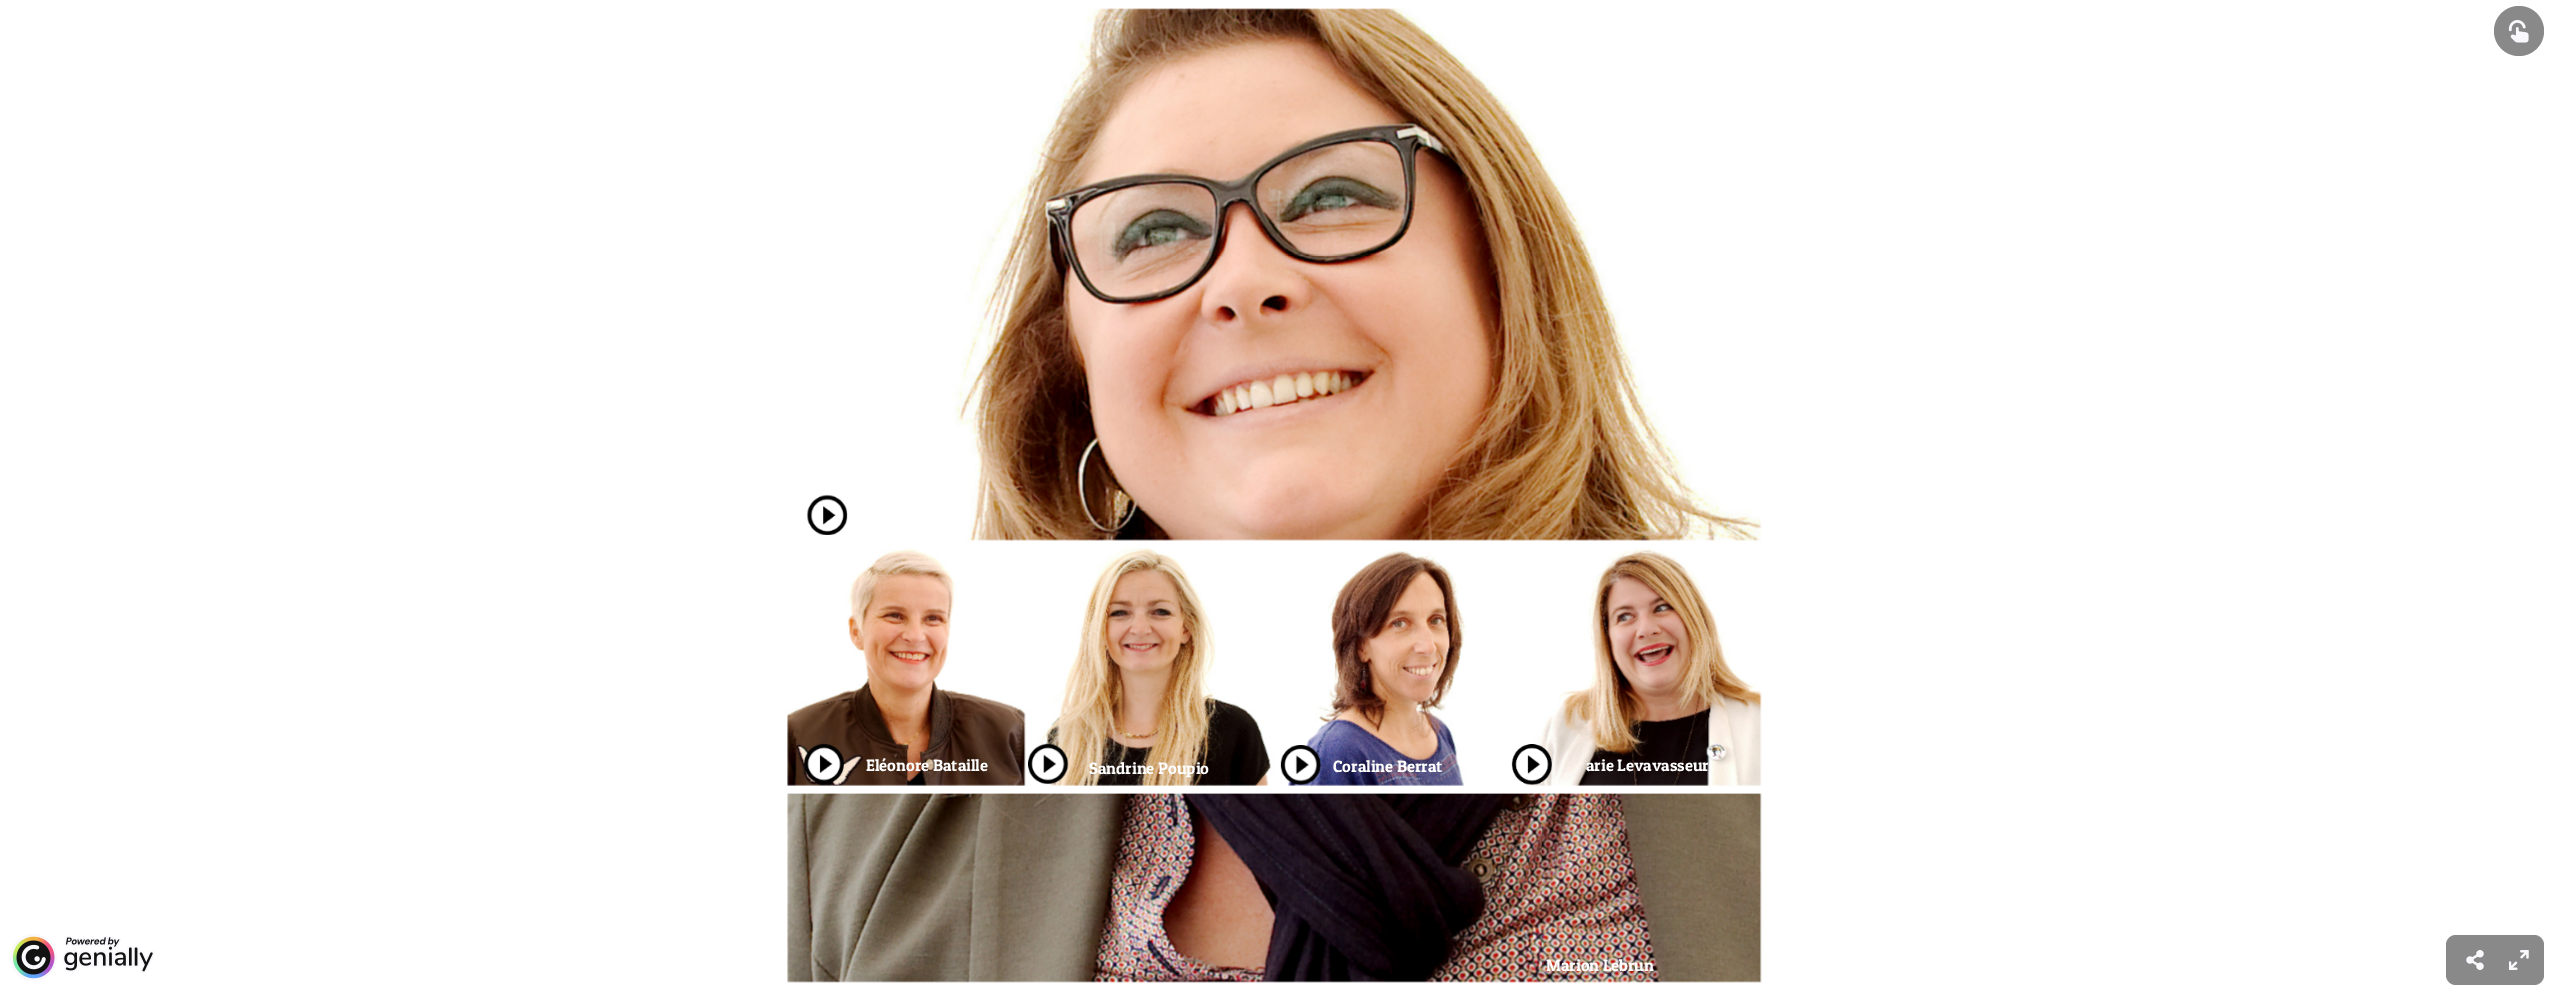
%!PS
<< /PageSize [2550 991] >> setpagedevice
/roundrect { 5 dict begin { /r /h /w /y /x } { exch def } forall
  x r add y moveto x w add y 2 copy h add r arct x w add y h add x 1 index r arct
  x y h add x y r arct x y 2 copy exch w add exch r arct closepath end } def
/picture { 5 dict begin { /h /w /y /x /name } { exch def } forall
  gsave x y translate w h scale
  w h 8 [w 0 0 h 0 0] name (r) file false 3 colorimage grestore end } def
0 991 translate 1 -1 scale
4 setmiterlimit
1 setgray
0 0 2550 991 rectfill
(img1.rgb) 10 934 145 47 picture
(img2.rgb) 787 8 975 975 picture
(img3.rgb) 806 494 42 41 picture
(img4.rgb) 803 743 42 41 picture
/PatuaOne-Regular [16.5 0 0 -16.5 0 0] selectfont
866 771 moveto (Eléonore Bataille) show
(img5.rgb) 1028 743 41 42 picture
1089 774 moveto (Sandrine Poupio) show
(img6.rgb) 1280 745 42 41 picture
1333 772 moveto (Coraline Berrat) show
(img7.rgb) 1511 744 41 41 picture
1586 771 moveto (arie Levavasseur) show
1546 971 moveto (Marion Lebrun) show
0.537 setgray
newpath 2519 31 25 0 360 arc closepath fill
(img8.rgb) 2508 20 21 23 picture
2446 935 98 50 10 roundrect fill
(img9.rgb) 2466 950 18 20 picture
(img10.rgb) 2509 950 20 20 picture
showpage
